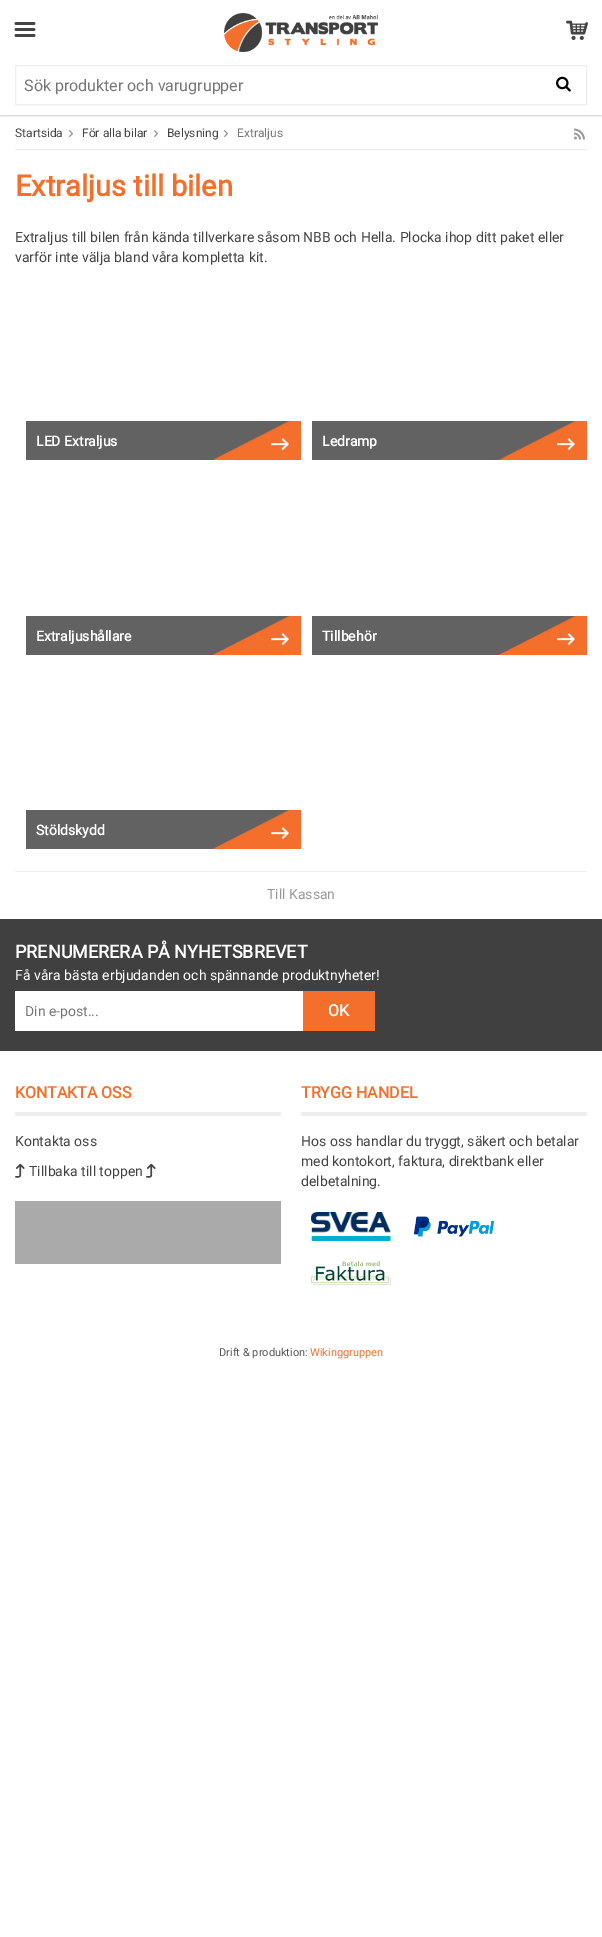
%!PS
<< /PageSize [602 1937] /PageUsesTransparency true >> setpagedevice
/alpha { dup .setfillconstantalpha .setstrokeconstantalpha } def
/roundrect { 5 dict begin { /r /h /w /y /x } { exch def } forall
  x r add y moveto x w add y 2 copy h add r arct x w add y h add x 1 index r arct
  x y h add x y r arct x y 2 copy exch w add exch r arct closepath end } def
/shadow { 12 dict begin { /a /b /q /h /w /y /x } { exch def } forall gsave /was 0 def
  9 -2 -9 { dup b mul 4 div /e exch def 1 sub .425 mul 2.718 exch exp 1 add a .99 .min exch div /now exch def
    1 1 now sub 1 was sub div sub alpha /was now def
    w h .min e 2 mul add 0 gt { x e sub y e sub w e 2 mul add h e 2 mul add
      q e add b .6 mul add w h .min 2 div e add .min 0 .max roundrect fill } if } for grestore end } def
/picture { 5 dict begin { /h /w /y /x /name } { exch def } forall
  gsave x y translate w h scale
  w h 8 [w 0 0 h 0 0] name (r) file false 3 colorimage grestore end } def
0 .pushpdf14devicefilter
0 1937 translate 1 -1 scale
4 setmiterlimit
1 setgray
0 0 602 1937 rectfill
gsave
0 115 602 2 rectclip
0 setgray
0 1 602 115 0 1 0.2 shadow
grestore
(img1.rgb) 14 22 22 15 picture
(img2.rgb) 224 13 154 39 picture
(img3.rgb) 566 20 22 20 picture
0.933 setgray
15.5 65.5 571 39 rectstroke
/Roboto-Regular [16 0 0 -16 0 0] selectfont
0.467 setgray
24 91 moveto (Sök produkter och varugrupper) show
(img4.rgb) 556 76 15 16 picture
0.933 setgray
15 149 572 1 rectfill
/Roboto-Regular [12 0 0 -12 0 0] selectfont
0.267 setgray
15 137 moveto (Startsida) show
(img5.rgb) 69 130 4 7 picture
82 137 moveto (För alla bilar) show
(img5.rgb) 154 130 4 7 picture
167 137 moveto (Belysning) show
(img5.rgb) 224 130 4 7 picture
0.467 setgray
237 137 moveto (Extraljus) show
(img6.rgb) 574 128 11 12 picture
/Roboto-Bold [29 0 0 -29 0 0] selectfont
0.953 0.435 0.169 setrgbcolor
15 196 moveto (Extraljus till bilen) show
/Roboto-Regular [14 0 0 -14 0 0] selectfont
0.267 setgray
15 242 moveto (Extraljus till bilen från kända tillverkare såsom NBB och Hella. Plocka ihop ditt paket eller) show
15 262 moveto (varför inte välja bland våra kompletta kit.) show
0.384 setgray
26 421 265 39 rectfill
(img7.rgb) 212 421 89 39 picture
/Roboto-Bold [14 0 0 -14 0 0] selectfont
1 setgray
36 446 moveto (LED Extraljus) show
0.384 setgray
312 421 265 39 rectfill
(img7.rgb) 498 421 89 39 picture
1 setgray
322 446 moveto (Ledramp) show
0.384 setgray
26 616 265 39 rectfill
(img7.rgb) 212 616 89 39 picture
1 setgray
36 641 moveto (Extraljushållare) show
0.384 setgray
312 616 265 39 rectfill
(img7.rgb) 498 616 89 39 picture
1 setgray
322 641 moveto (Tillbehör) show
0.384 setgray
26 810 265 39 rectfill
(img7.rgb) 212 810 89 39 picture
1 setgray
36 835 moveto (Stöldskydd) show
0.933 setgray
15 871 572 1 rectfill
/Roboto-Regular [14 0 0 -14 0 0] selectfont
0.6 setgray
267 899 moveto (Till Kassan) show
0.251 0.251 0.255 setrgbcolor
0 919 602 132 rectfill
/Roboto-Bold [18 0 0 -18 0 0] selectfont
1 setgray
15 958 moveto (PRENUMERERA PÅ NYHETSBREVET) show
/Roboto-Regular [14 0 0 -14 0 0] selectfont
15 980 moveto (Få våra bästa erbjudanden och spännande produktnyheter!) show
15 991 288 40 rectfill
0.467 setgray
25 1016 moveto (Din e-post...) show
0.953 0.435 0.169 setrgbcolor
303 991 72 40 rectfill
/Roboto-Bold [16 0 0 -16 0 0] selectfont
1 setgray
328 1016 moveto (OK) show
0.933 setgray
15 1112 266 4 rectfill
0.953 0.435 0.169 setrgbcolor
15 1098 moveto (KONTAKTA OSS) show
/Roboto-Regular [14 0 0 -14 0 0] selectfont
0.267 setgray
15 1146 moveto (Kontakta oss) show
(img8.rgb) 15 1163 10 15 picture
29 1176 moveto (Tillbaka till toppen) show
(img8.rgb) 146 1163 10 15 picture
0.667 setgray
15 1201 266 63 rectfill
0.933 setgray
301 1112 286 4 rectfill
/Roboto-Bold [16 0 0 -16 0 0] selectfont
0.953 0.435 0.169 setrgbcolor
301 1098 moveto (TRYGG HANDEL) show
/Roboto-Regular [14 0 0 -14 0 0] selectfont
0.267 setgray
301 1146 moveto (Hos oss handlar du tryggt, säkert och betalar) show
301 1166 moveto (med kontokort, faktura, direktbank eller) show
301 1186 moveto (delbetalning.) show
(img9.rgb) 311 1212 80 29 picture
(img10.rgb) 414 1216 80 21 picture
(img11.rgb) 311 1261 80 24 picture
/Roboto-Regular [11 0 0 -11 0 0] selectfont
0.333 setgray
219 1356 moveto (Drift & produktion:) show
0.953 0.435 0.169 setrgbcolor
310 1356 moveto (Wikinggruppen) show
.poppdf14devicefilter showpage
